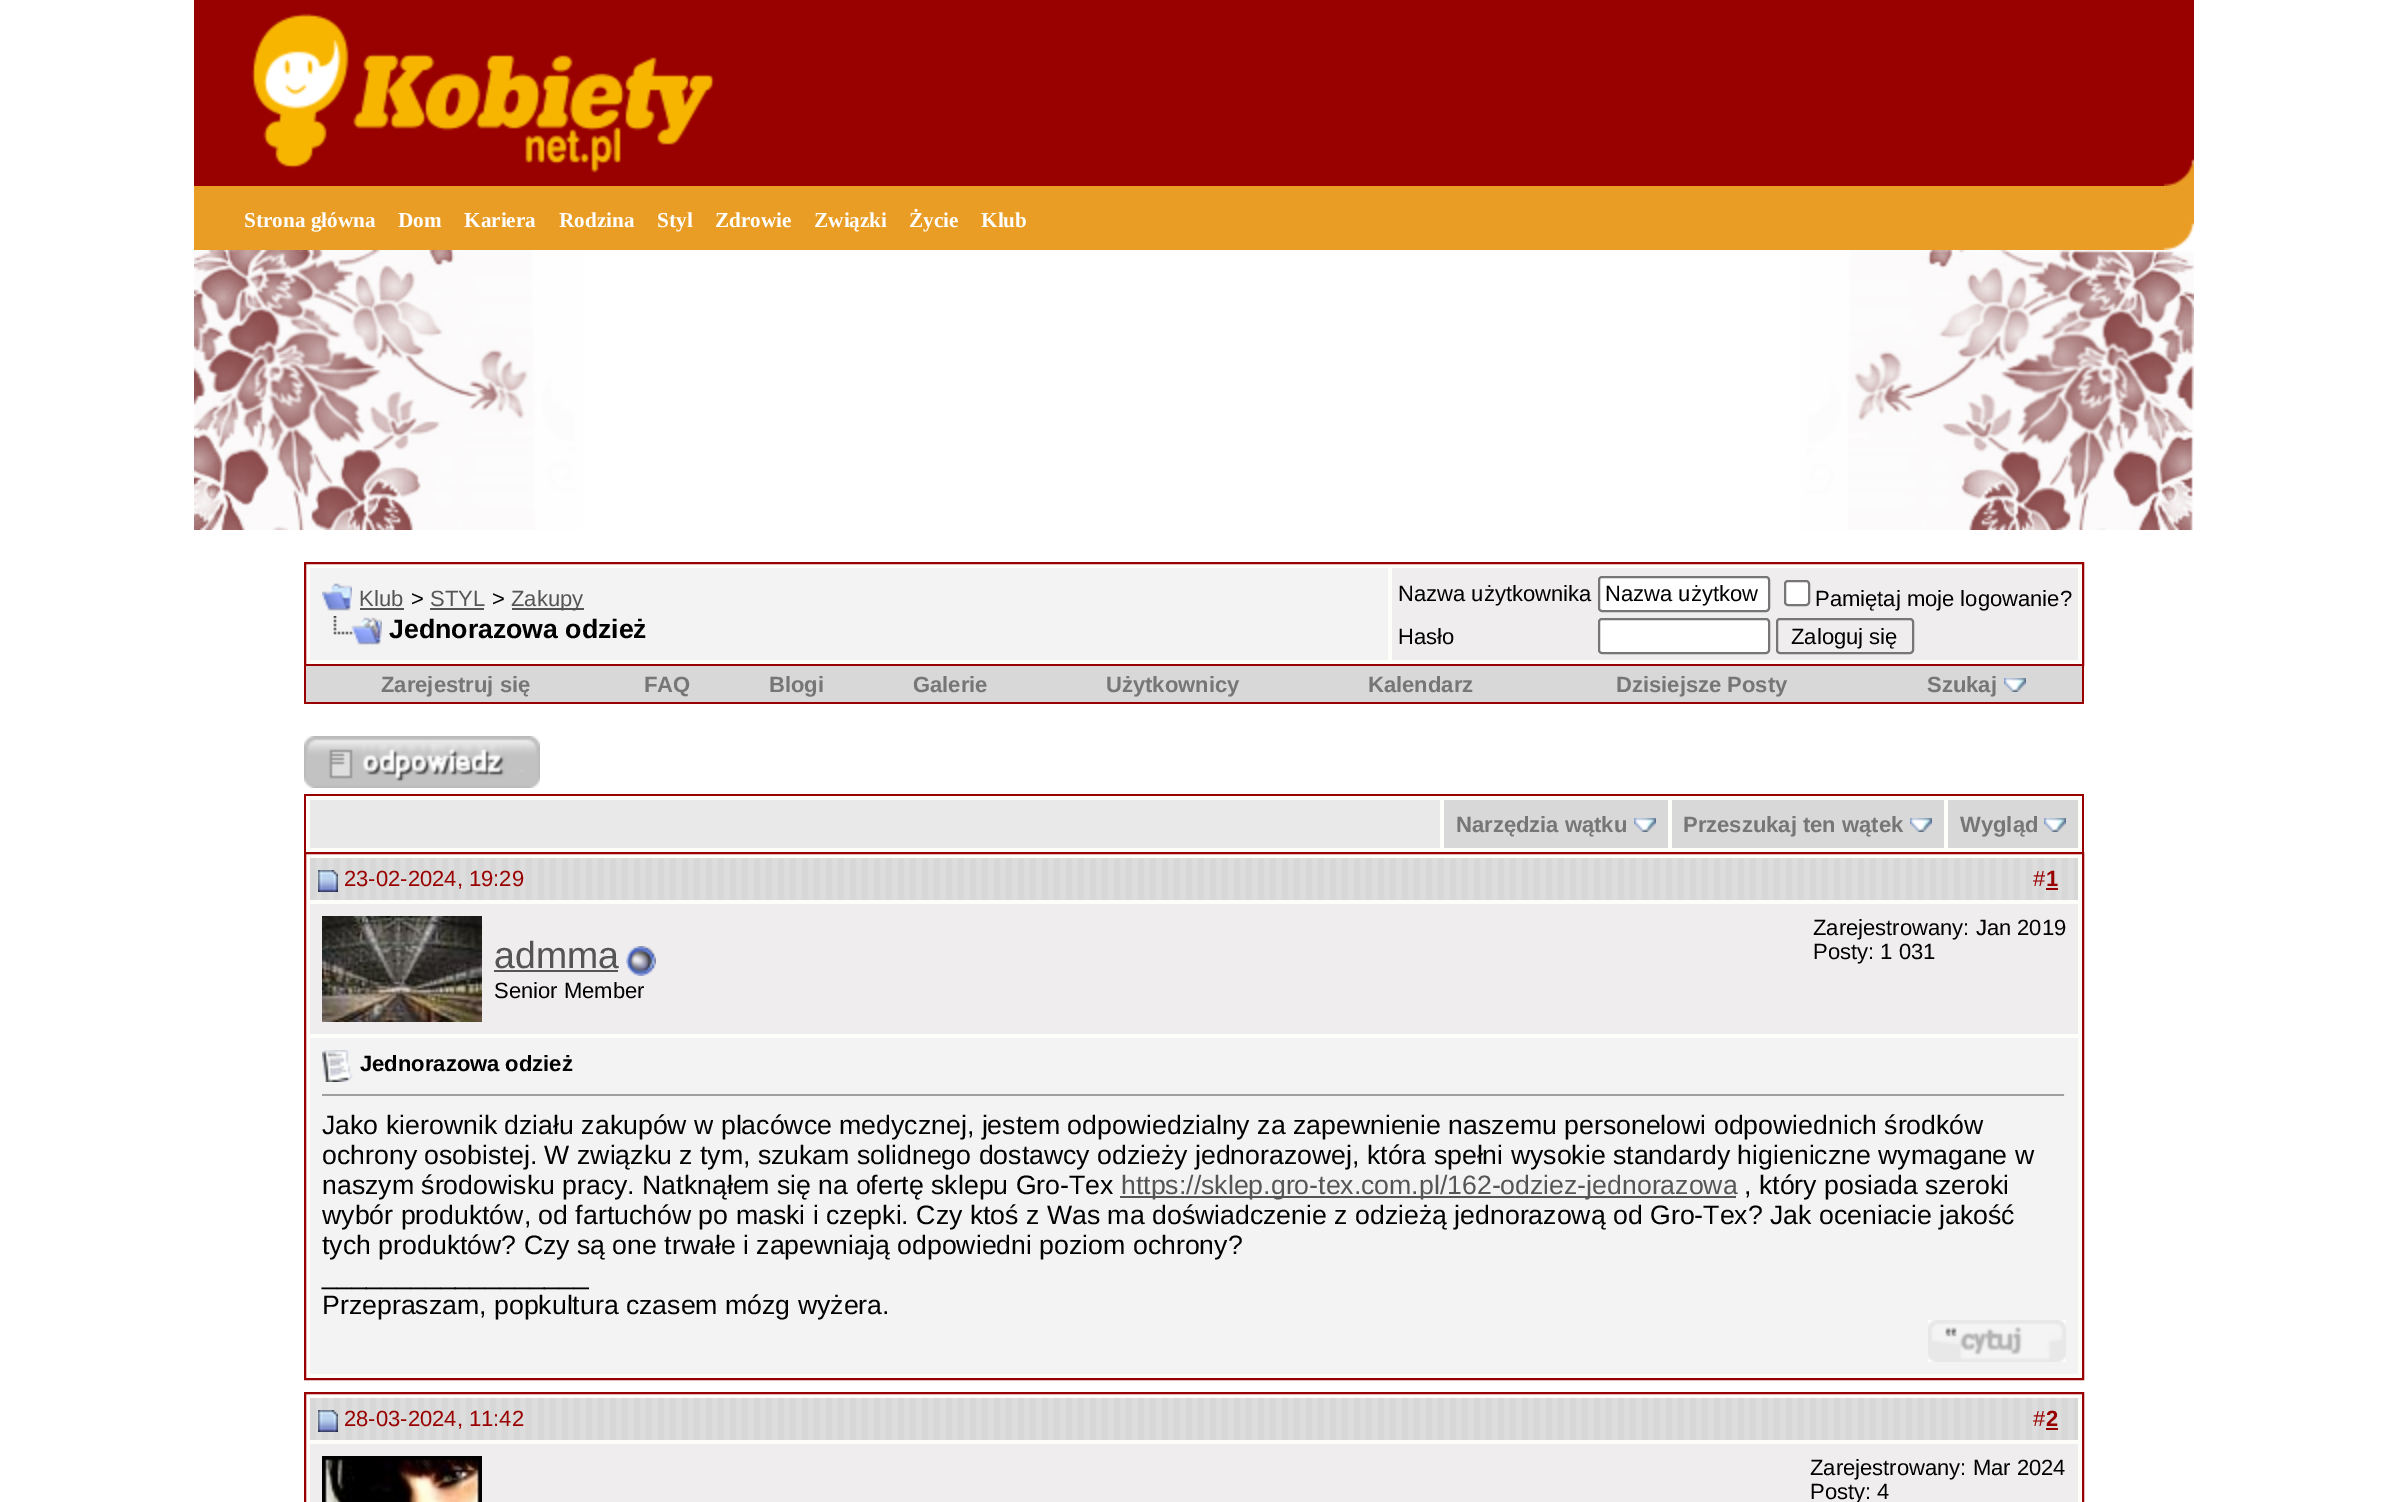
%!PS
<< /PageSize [2388 1502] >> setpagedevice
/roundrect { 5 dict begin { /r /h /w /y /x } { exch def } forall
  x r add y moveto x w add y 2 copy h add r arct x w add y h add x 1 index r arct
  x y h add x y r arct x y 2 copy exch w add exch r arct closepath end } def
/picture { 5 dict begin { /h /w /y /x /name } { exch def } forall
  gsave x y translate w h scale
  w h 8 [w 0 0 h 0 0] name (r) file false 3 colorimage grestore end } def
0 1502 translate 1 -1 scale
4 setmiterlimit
1 setgray
0 0 2388 1502 rectfill
0.6 0 0 setrgbcolor
194 0 1970 186 rectfill
(img1.rgb) 251 13 464 160 picture
2164 0 30 159 rectfill
(img2.rgb) 2164 159 30 27 picture
0.918 0.616 0.141 setrgbcolor
194 186 1970 64 rectfill
/LiberationSerif-Bold [21.25 0 0 -21.25 0 0] selectfont
1 setgray
244 227 moveto (Strona główna) show
398 227 moveto (Dom) show
464 227 moveto (Kariera) show
559 227 moveto (Rodzina) show
657 227 moveto (Styl) show
715 227 moveto (Zdrowie) show
814 227 moveto (Związki) show
909 227 moveto (Życie) show
981 227 moveto (Klub) show
(img3.rgb) 2164 186 30 64 picture
(img4.rgb) 194 250 2000 280 picture
0.992 0.992 0.976 setrgbcolor
newpath 305 563 moveto 2083 563 lineto 2083 665 lineto 305 665 lineto closepath gsave fill grestore
0.6 0 0 setrgbcolor
2 setlinewidth
stroke
0.953 setgray
310 568 1078 92 rectfill
(img5.rgb) 322 583 30 28 picture
/LiberationSans-Regular [22 0 0 -22 0 0] selectfont
0.333 setgray
359 606 moveto (Klub) show
360 608 44 2 rectfill
0 setgray
411 606 moveto (>) show
0.333 setgray
430 606 moveto (STYL) show
430 608 54 2 rectfill
0 setgray
492 606 moveto (>) show
0.333 setgray
512 608 72 2 rectfill
511 606 moveto (Zakupy) show
(img6.rgb) 333 616 49 29 picture
/LiberationSans-Bold [26.67 0 0 -26.67 0 0] selectfont
0 setgray
389 638 moveto (Jednorazowa odzież) show
0.937 0.929 0.929 setrgbcolor
1392 568 686 92 rectfill
/LiberationSans-Regular [22 0 0 -22 0 0] selectfont
0 setgray
1398 601 moveto (Nazwa użytkownika) show
1 setgray
1599 577 170 34 3 roundrect gsave fill grestore
0.463 setgray
stroke
0 setgray
1605 601 moveto (Nazwa użytkow) show
1 setgray
1785 581 24 24 3 roundrect gsave fill grestore
0.463 setgray
stroke
0 setgray
1815 606 moveto (Pamiętaj moje logowanie?) show
1398 644 moveto (Hasło) show
1 setgray
1599 619 170 34 3 roundrect gsave fill grestore
0.463 setgray
stroke
1777 619 136 34 3 roundrect stroke
0 setgray
1791 644 moveto (Zaloguj się) show
0.6 0 0 setrgbcolor
2082 666 2 38 rectfill
304 702 1780 2 rectfill
304 666 2 38 rectfill
0.847 setgray
306 666 1776 36 rectfill
/LiberationSans-Bold [22 0 0 -22 0 0] selectfont
0.463 setgray
381 692 moveto (Zarejestruj się) show
644 692 moveto (FAQ) show
769 692 moveto (Blogi) show
913 692 moveto (Galerie) show
1106 692 moveto (Użytkownicy) show
1368 692 moveto (Kalendarz) show
1616 692 moveto (Dzisiejsze Posty) show
1927 692 moveto (Szukaj) show
(img7.rgb) 2004 678 22 14 picture
(img8.rgb) 304 736 236 52 picture
0.992 0.992 0.976 setrgbcolor
306 796 1776 56 rectfill
0.6 0 0 setrgbcolor
304 794 1780 2 rectfill
2082 794 2 58 rectfill
304 794 2 58 rectfill
0.914 setgray
310 800 1130 48 rectfill
0.847 setgray
1444 800 224 48 rectfill
0.463 setgray
1456 832 moveto (Narzędzia wątku) show
(img7.rgb) 1634 818 22 14 picture
0.847 setgray
1672 800 272 48 rectfill
0.463 setgray
1683 832 moveto (Przeszukaj ten wątek) show
(img7.rgb) 1910 818 22 14 picture
0.847 setgray
1948 800 130 48 rectfill
0.463 setgray
1960 832 moveto (Wygląd) show
(img7.rgb) 2044 818 22 14 picture
0.992 0.992 0.976 setrgbcolor
newpath 305 853 moveto 2083 853 lineto 2083 1379 lineto 305 1379 lineto closepath gsave fill grestore
0.6 0 0 setrgbcolor
stroke
(img9.rgb) 310 858 1768 42 picture
(img10.rgb) 318 870 20 22 picture
/LiberationSans-Regular [22 0 0 -22 0 0] selectfont
344 886 moveto (23-02-2024, 19:29) show
2033 886 moveto (#) show
/LiberationSans-Bold [22 0 0 -22 0 0] selectfont
2046 886 moveto (1) show
2046 888 12 2 rectfill
0.937 0.929 0.929 setrgbcolor
310 904 1768 130 rectfill
(img11.rgb) 322 916 160 106 picture
/LiberationSans-Regular [37.5 0 0 -37.5 0 0] selectfont
0.333 setgray
494 968 moveto (admma) show
494 970 124 2 rectfill
(img12.rgb) 626 946 30 30 picture
/LiberationSans-Regular [22 0 0 -22 0 0] selectfont
0 setgray
494 998 moveto (Senior Member) show
1813 935 moveto (Zarejestrowany: Jan 2019) show
1813 959 moveto (Posty: 1 031) show
0.953 setgray
310 1038 1768 336 rectfill
(img13.rgb) 322 1050 31 32 picture
/LiberationSans-Bold [22 0 0 -22 0 0] selectfont
0 setgray
360 1071 moveto (Jednorazowa odzież) show
0.624 setgray
322 1094 1744 2 rectfill
0.933 setgray
2064 1094 2 2 rectfill
/LiberationSans-Regular [26.67 0 0 -26.67 0 0] selectfont
0 setgray
322 1134 moveto (Jako kierownik działu zakupów w placówce medycznej, jestem odpowiedzialny za zapewnienie naszemu personelowi odpowiednich środków) show
322 1164 moveto (ochrony osobistej. W związku z tym, szukam solidnego dostawcy odzieży jednorazowej, która spełni wysokie standardy higieniczne wymagane w) show
322 1194 moveto (naszym środowisku pracy. Natknąłem się na ofertę sklepu Gro-Tex) show
0.333 setgray
1120 1196 616 2 rectfill
1121 1194 moveto (https://sklep.gro-tex.com.pl/162-odziez-jednorazowa) show
0 setgray
1744 1194 moveto (, który posiada szeroki) show
322 1224 moveto (wybór produktów, od fartuchów po maski i czepki. Czy ktoś z Was ma doświadczenie z odzieżą jednorazową od Gro-Tex? Jak oceniacie jakość) show
322 1254 moveto (tych produktów? Czy są one trwałe i zapewniają odpowiedni poziom ochrony?) show
322 1284 moveto (__________________) show
322 1314 moveto (Przepraszam, popkultura czasem mózg wyżera.) show
(img14.rgb) 1928 1320 138 42 picture
0.992 0.992 0.976 setrgbcolor
newpath 305 1393 moveto 2083 1393 lineto 2083 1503 lineto 305 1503 lineto closepath gsave fill grestore
0.6 0 0 setrgbcolor
stroke
(img9.rgb) 310 1398 1768 42 picture
(img10.rgb) 318 1410 20 22 picture
/LiberationSans-Regular [22 0 0 -22 0 0] selectfont
344 1426 moveto (28-03-2024, 11:42) show
2033 1426 moveto (#) show
/LiberationSans-Bold [22 0 0 -22 0 0] selectfont
2046 1426 moveto (2) show
2046 1428 12 2 rectfill
0.937 0.929 0.929 setrgbcolor
310 1444 1768 58 rectfill
(img15.rgb) 322 1456 160 46 picture
/LiberationSans-Regular [22 0 0 -22 0 0] selectfont
0 setgray
1810 1475 moveto (Zarejestrowany: Mar 2024) show
1810 1499 moveto (Posty: 4) show
showpage
